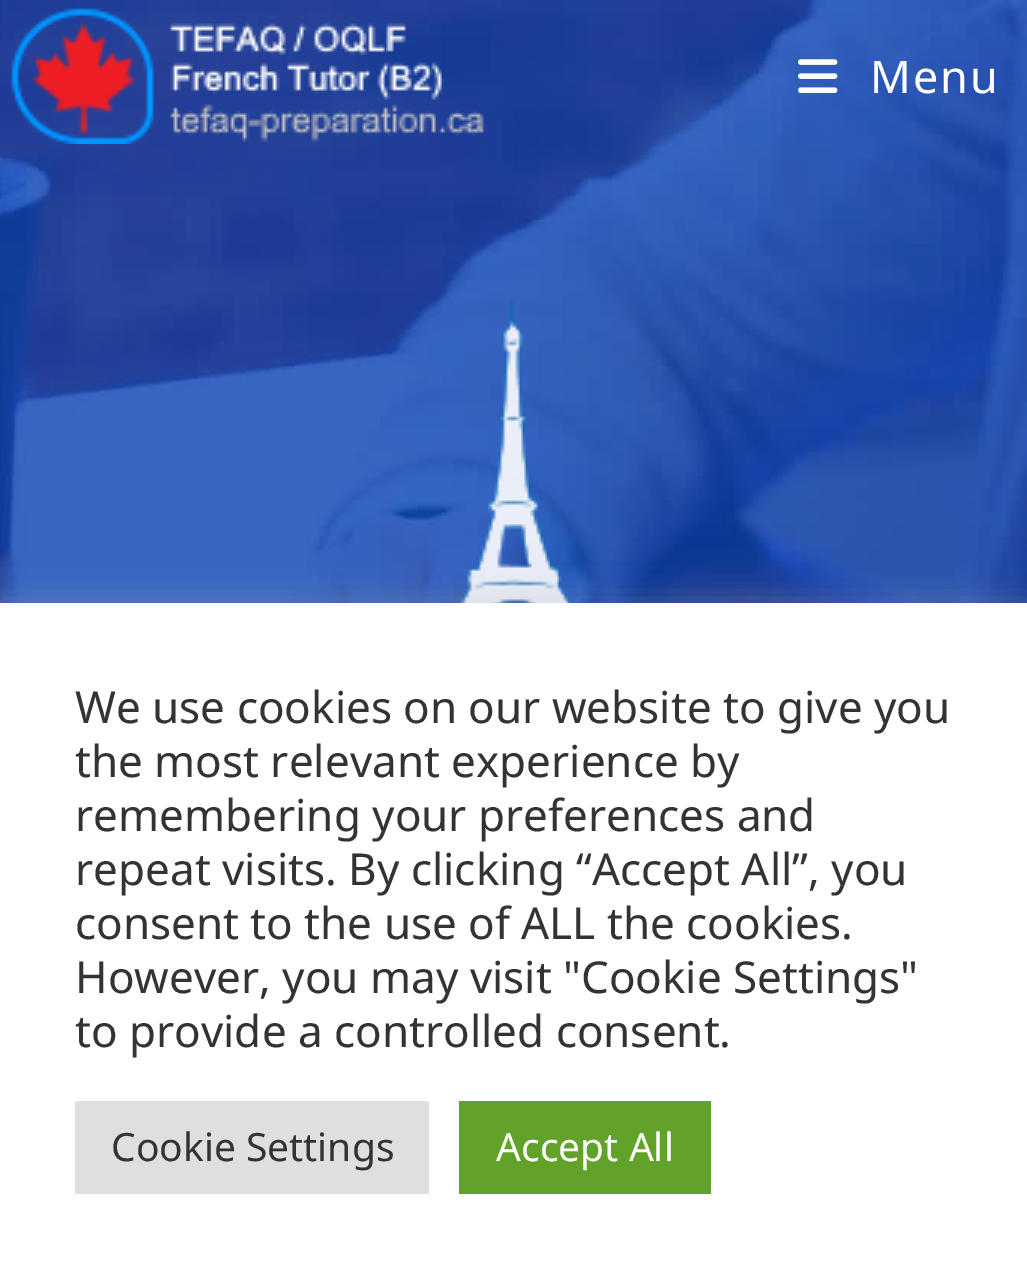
%!PS
<< /PageSize [1027 1284] /PageUsesTransparency true >> setpagedevice
/alpha { dup .setfillconstantalpha .setstrokeconstantalpha } def
/roundrect { 5 dict begin { /r /h /w /y /x } { exch def } forall
  x r add y moveto x w add y 2 copy h add r arct x w add y h add x 1 index r arct
  x y h add x y r arct x y 2 copy exch w add exch r arct closepath end } def
/shadow { 12 dict begin { /a /b /q /h /w /y /x } { exch def } forall gsave /was 0 def
  9 -2 -9 { dup b mul 4 div /e exch def 1 sub .425 mul 2.718 exch exp 1 add a .99 .min exch div /now exch def
    1 1 now sub 1 was sub div sub alpha /was now def
    w h .min e 2 mul add 0 gt { x e sub y e sub w e 2 mul add h e 2 mul add
      q e add b .6 mul add w h .min 2 div e add .min 0 .max roundrect fill } if } for grestore end } def
/picture { 5 dict begin { /h /w /y /x /name } { exch def } forall
  gsave x y translate w h scale
  w h 8 [w 0 0 h 0 0] name (r) file false 3 colorimage grestore end } def
0 .pushpdf14devicefilter
0 1284 translate 1 -1 scale
4 setmiterlimit
1 setgray
0 0 1027 1284 rectfill
(img1.rgb) 0 0 1027 603 picture
(img2.rgb) 458 300 116 303 picture
(img3.rgb) 11 8 473 136 picture
(img4.rgb) 798 59 40 34 picture
/NotoSans-Regular [45 0 0 -45 0 0] selectfont
870 93 moveto 2 0 (Menu) ashow
0.675 0.671 0.671 setrgbcolor
0 600 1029 681 0 15 0.3 shadow
1 setgray
0 603 1027 681 rectfill
/NotoSans-Regular [44 0 0 -44 0 0] selectfont
0.2 setgray
75 723 moveto (We use cookies on our website to give you) show
75 777 moveto (the most relevant experience by) show
75 831 moveto (remembering your preferences and) show
75 885 moveto (repeat visits. By clicking “Accept All”, you) show
75 939 moveto (consent to the use of ALL the cookies.) show
75 993 moveto (However, you may visit "Cookie Settings") show
75 1047 moveto (to provide a controlled consent.) show
0.871 0.875 0.878 setrgbcolor
75 1101 354 93 rectfill
/NotoSans-Regular [39 0 0 -39 0 0] selectfont
0.2 setgray
111 1161 moveto (Cookie Settings) show
0.38 0.635 0.161 setrgbcolor
459 1101 252 93 rectfill
1 setgray
496 1161 moveto (Accept All) show
.poppdf14devicefilter showpage
